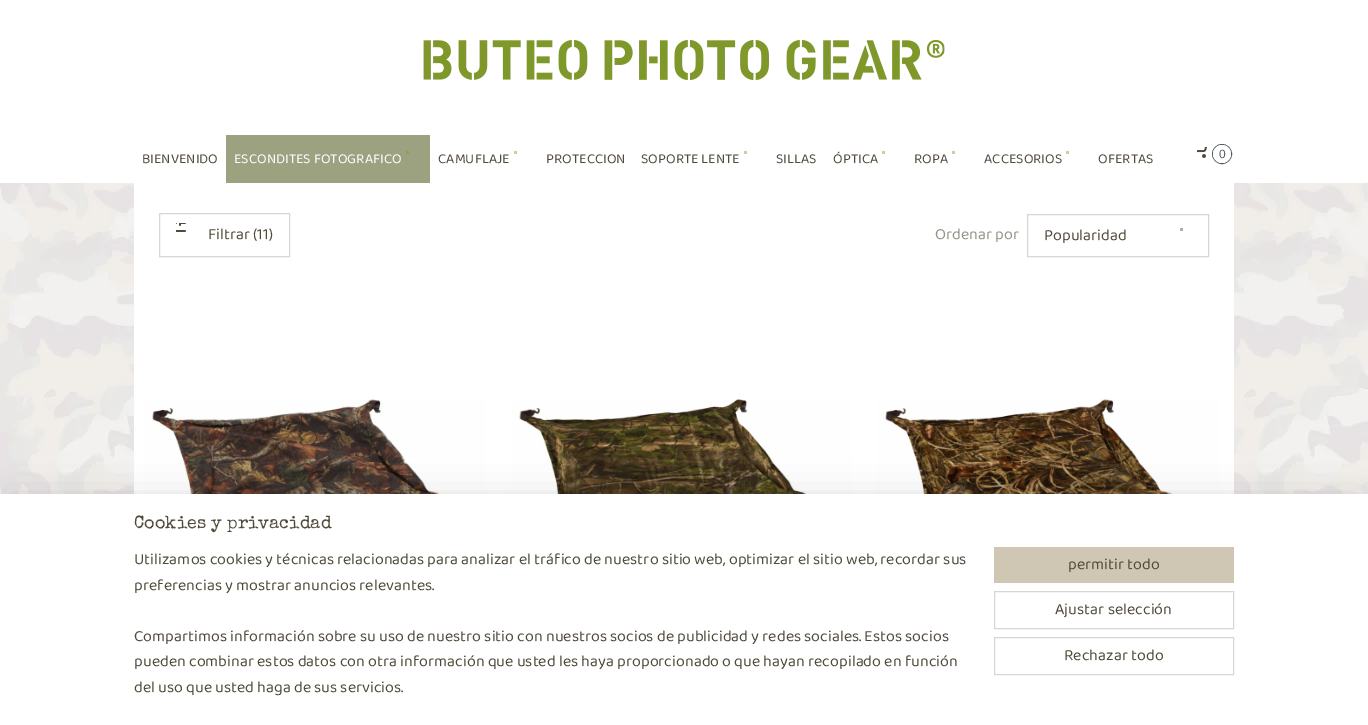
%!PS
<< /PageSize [1368 725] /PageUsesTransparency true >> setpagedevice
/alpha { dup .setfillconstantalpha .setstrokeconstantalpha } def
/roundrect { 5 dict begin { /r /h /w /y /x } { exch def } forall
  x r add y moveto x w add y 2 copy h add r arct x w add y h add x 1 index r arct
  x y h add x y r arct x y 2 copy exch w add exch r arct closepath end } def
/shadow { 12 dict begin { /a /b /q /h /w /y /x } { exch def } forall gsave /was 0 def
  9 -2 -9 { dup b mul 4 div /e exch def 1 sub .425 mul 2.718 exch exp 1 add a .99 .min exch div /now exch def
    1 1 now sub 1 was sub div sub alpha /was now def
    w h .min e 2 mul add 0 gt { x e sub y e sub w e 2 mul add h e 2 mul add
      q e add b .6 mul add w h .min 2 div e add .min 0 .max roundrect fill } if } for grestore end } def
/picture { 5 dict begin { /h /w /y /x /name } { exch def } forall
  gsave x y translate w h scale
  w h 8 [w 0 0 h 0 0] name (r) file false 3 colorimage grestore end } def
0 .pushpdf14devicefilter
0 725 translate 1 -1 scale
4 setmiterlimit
1 setgray
0 0 1368 725 rectfill
(img1.rgb) 423 40 522 40 picture
/Baloo2-Regular [14 0 0 -14 0 0] selectfont
0.31 0.29 0.224 setrgbcolor
142 163 moveto (BIENVENIDO) show
0.612 0.631 0.502 setrgbcolor
226 135 204 48 rectfill
0.561 0.62 0.341 setrgbcolor
406 151 3 3 rectfill
1 setgray
234 163 moveto (ESCONDITES FOTOGRAFICO) show
0.776 0.824 0.612 setrgbcolor
514 151 3 3 rectfill
0.31 0.29 0.224 setrgbcolor
438 163 moveto (CAMUFLAJE) show
546 163 moveto (PROTECCION) show
0.776 0.824 0.612 setrgbcolor
744 151 3 3 rectfill
0.31 0.29 0.224 setrgbcolor
641 163 moveto (SOPORTE LENTE) show
776 163 moveto (SILLAS) show
833 163 moveto (ÓPTICA) show
0.776 0.824 0.612 setrgbcolor
882 151 3 3 rectfill
952 151 3 3 rectfill
0.31 0.29 0.224 setrgbcolor
914 163 moveto (ROPA) show
0.776 0.824 0.612 setrgbcolor
1066 151 3 3 rectfill
0.31 0.29 0.224 setrgbcolor
984 163 moveto (ACCESORIOS) show
1098 163 moveto (OFERTAS) show
(img2.rgb) 1197 147 10 11 picture
0.341 0.357 0.384 setrgbcolor
newpath 1222 154 9.5 0 360 arc closepath stroke
1 setgray
newpath 1222 154 9 0 360 arc closepath fill
/LiberationSans-Regular [12 0 0 -12 0 0] selectfont
0.341 0.357 0.384 setrgbcolor
1219 158 moveto (0) show
(img3.rgb) 0 183 1368 311 picture
1 setgray
134 183 1100 311 rectfill
0.839 setgray
159.5 213.5 130 43 rectstroke
(img4.rgb) 176 223 10 9 picture
/Baloo2-Regular [16 0 0 -16 0 0] selectfont
0.31 0.29 0.224 setrgbcolor
208 239 moveto (Filtrar \(11\)) show
0.584 0.573 0.533 setrgbcolor
935 239 moveto (Ordenar por) show
0.839 setgray
1027.5 214.5 181 42 rectstroke
0.31 0.29 0.224 setrgbcolor
1044 240 moveto (Popularidad) show
0.69 0.682 0.651 setrgbcolor
1180 228 3 3 rectfill
(img5.rgb) 144 399 342 95 picture
(img6.rgb) 511 399 341 95 picture
(img7.rgb) 877 399 342 95 picture
0 setgray
10 504 1348 211 0 18 0.2 shadow
1 setgray
0 494 1368 231 rectfill
/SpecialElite-Regular [18 0 0 -18 0 0] selectfont
0.31 0.29 0.224 setrgbcolor
134 528 moveto (Cookies y privacidad) show
/Baloo2-Regular [16 0 0 -16 0 0] selectfont
134 564 moveto (Utilizamos cookies y técnicas relacionadas para analizar el tráfico de nuestro sitio web, optimizar el sitio web, recordar sus) show
134 590 moveto (preferencias y mostrar anuncios relevantes.) show
134 641 moveto (Compartimos información sobre su uso de nuestro sitio con nuestros socios de publicidad y redes sociales. Estos socios) show
134 666 moveto (pueden combinar estos datos con otra información que usted les haya proporcionado o que hayan recopilado en función) show
134 692 moveto (del uso que usted haga de sus servicios.) show
0.812 0.78 0.702 setrgbcolor
994 547 240 36 rectfill
0.31 0.29 0.224 setrgbcolor
1068 569 moveto (permitir todo) show
0.839 setgray
994.5 591.5 239 37 rectstroke
0.31 0.29 0.224 setrgbcolor
1055 614 moveto (Ajustar selección) show
0.839 setgray
994.5 637.5 239 37 rectstroke
0.31 0.29 0.224 setrgbcolor
1064 660 moveto (Rechazar todo) show
.poppdf14devicefilter showpage
